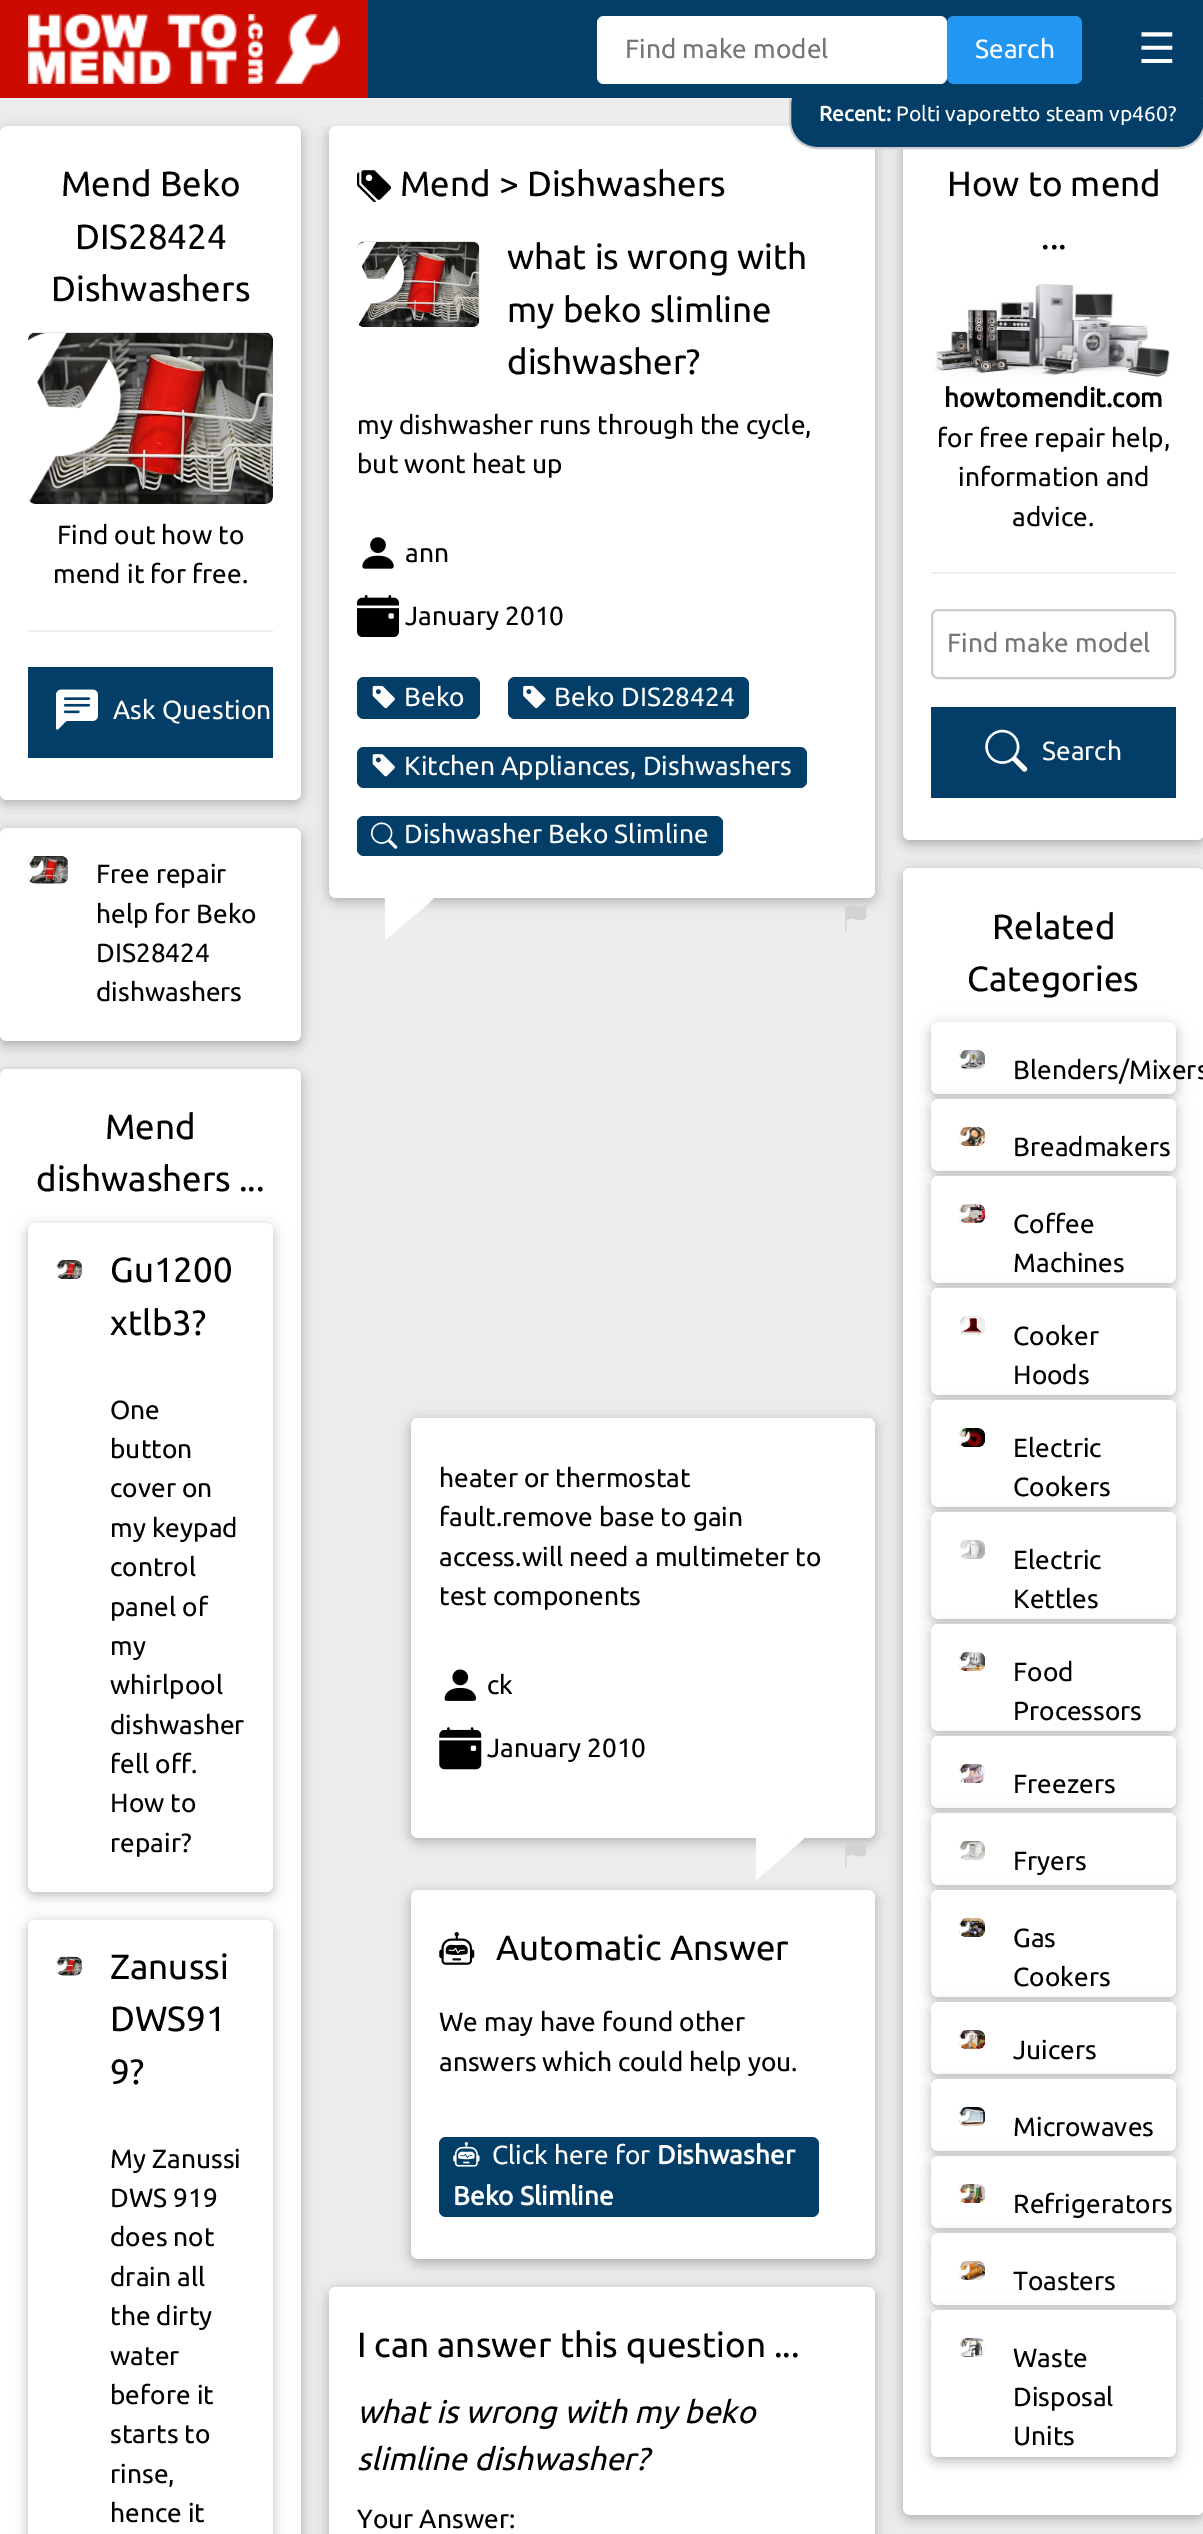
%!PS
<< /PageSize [1203 2534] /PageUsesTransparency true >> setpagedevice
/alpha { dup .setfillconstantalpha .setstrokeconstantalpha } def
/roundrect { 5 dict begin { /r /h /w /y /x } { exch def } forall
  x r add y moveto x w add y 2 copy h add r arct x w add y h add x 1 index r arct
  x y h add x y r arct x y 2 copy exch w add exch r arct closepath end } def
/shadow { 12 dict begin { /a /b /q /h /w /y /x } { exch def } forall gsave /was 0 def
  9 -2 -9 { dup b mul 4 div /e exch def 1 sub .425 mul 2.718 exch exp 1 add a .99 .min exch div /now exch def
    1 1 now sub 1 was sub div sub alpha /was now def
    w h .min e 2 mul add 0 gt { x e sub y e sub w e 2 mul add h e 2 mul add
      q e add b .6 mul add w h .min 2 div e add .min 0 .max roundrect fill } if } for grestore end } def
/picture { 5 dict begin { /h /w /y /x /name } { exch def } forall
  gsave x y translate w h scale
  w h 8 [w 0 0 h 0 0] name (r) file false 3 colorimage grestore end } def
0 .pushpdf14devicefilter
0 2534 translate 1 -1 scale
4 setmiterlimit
0.929 setgray
0 0 1203 2534 rectfill
gsave
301 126 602 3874 rectclip
0 setgray
329 130 546 771 7 9 0.12 shadow
grestore
0 setgray
329 130 546 771 7 4.5 0.16 shadow
1 setgray
329 126 546 772 7 roundrect fill
0 setgray
903 130 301 714 7 9 0.12 shadow
903 130 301 714 7 4.5 0.16 shadow
1 setgray
903 126 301 714 7 roundrect fill
0.008 0.243 0.408 setrgbcolor
790 78 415 70 27 roundrect gsave fill grestore
0.8 setgray
2 setlinewidth
stroke
0.008 0.243 0.408 setrgbcolor
368 0 835 98 rectfill
0.804 0.039 0 setrgbcolor
0 0 368 98 rectfill
(img1.rgb) 28 14 312 70 picture
1 setgray
597 16 350 68 7 roundrect fill
/Ubuntu-Regular [26.25 0 0 -26.25 0 0] selectfont
0.459 setgray
625 58 moveto (Find make model) show
0.129 0.588 0.953 setrgbcolor
947 16 135 68 7 roundrect fill
1 setgray
975 58 moveto (Search) show
/DejaVuSans-Regular [42 0 0 -42 0 0] selectfont
1138 63 moveto (☰) show
/Ubuntu-Bold [21 0 0 -21 0 0] selectfont
819 121 moveto (Recent:) show
/Ubuntu-Regular [21 0 0 -21 0 0] selectfont
896 121 moveto (Polti vaporetto steam vp460?) show
0 setgray
0 130 301 673 7 9 0.12 shadow
0 130 301 673 7 4.5 0.16 shadow
1 setgray
0 126 301 674 7 roundrect fill
/Ubuntu-Regular [35 0 0 -35 0 0] selectfont
0 setgray
61 196 moveto (Mend Beko) show
75 249 moveto (DIS28424) show
51 301 moveto (Dishwashers) show
(img2.rgb) 28 332 245 172 picture
(img3.rgb) 28 332 101 172 picture
/Ubuntu-Regular [26.25 0 0 -26.25 0 0] selectfont
57 544 moveto (Find out how to) show
53 583 moveto (mend it for free.) show
0.933 setgray
28 630 245 2 rectfill
0.008 0.243 0.408 setrgbcolor
28 667 245 91 rectfill
(img4.rgb) 56 689 42 41 picture
1 setgray
113 719 moveto (Ask Question) show
0 setgray
0 831 301 214 7 9 0.12 shadow
0 831 301 214 7 4.5 0.16 shadow
1 setgray
0 828 301 213 7 roundrect fill
(img5.rgb) 28 856 40 28 picture
(img6.rgb) 28 856 17 26 picture
0 setgray
96 883 moveto (Free repair) show
96 923 moveto (help for Beko) show
96 962 moveto (DIS28424) show
96 1001 moveto (dishwashers) show
0 1073 301 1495 7 9 0.12 shadow
0 1073 301 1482 7 4.5 0.16 shadow
1 setgray
0 1069 301 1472 7 roundrect fill
/Ubuntu-Regular [35 0 0 -35 0 0] selectfont
0 setgray
105 1139 moveto (Mend) show
36 1191 moveto (dishwashers ...) show
28 1227 245 668 7 9 0.12 shadow
28 1227 245 668 7 4.5 0.16 shadow
1 setgray
28 1223 245 669 7 roundrect fill
(img7.rgb) 56 1260 26 19 picture
(img8.rgb) 56 1260 12 18 picture
0 setgray
110 1282 moveto (Gu1200) show
110 1335 moveto (xtlb3?) show
/Ubuntu-Regular [26.25 0 0 -26.25 0 0] selectfont
110 1419 moveto (One) show
110 1458 moveto (button) show
110 1497 moveto (cover on) show
110 1537 moveto (my keypad) show
110 1576 moveto (control) show
110 1616 moveto (panel of) show
110 1655 moveto (my) show
110 1694 moveto (whirlpool) show
110 1734 moveto (dishwasher) show
110 1773 moveto (fell off.) show
110 1812 moveto (How to) show
110 1852 moveto (repair?) show
28 1923 245 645 7 9 0.12 shadow
28 1923 245 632 7 4.5 0.16 shadow
1 setgray
28 1920 245 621 7 roundrect fill
(img9.rgb) 56 1956 26 20 picture
(img10.rgb) 56 1957 12 17 picture
/Ubuntu-Regular [35 0 0 -35 0 0] selectfont
0 setgray
110 1979 moveto (Zanussi) show
110 2031 moveto (DWS91) show
110 2084 moveto (9?) show
/Ubuntu-Regular [26.25 0 0 -26.25 0 0] selectfont
110 2168 moveto (My Zanussi) show
110 2207 moveto (DWS 919) show
110 2246 moveto (does not) show
110 2286 moveto (drain all) show
110 2325 moveto (the dirty) show
110 2365 moveto (water) show
110 2404 moveto (before it) show
110 2443 moveto (starts to) show
110 2483 moveto (rinse,) show
110 2522 moveto (hence it) show
(img11.rgb) 357 170 35 33 picture
/Ubuntu-Regular [35 0 0 -35 0 0] selectfont
400 196 moveto (Mend > Dishwashers) show
(img12.rgb) 357 241 123 86 picture
(img13.rgb) 357 241 51 86 picture
507 269 moveto (what is wrong with) show
507 322 moveto (my beko slimline) show
507 374 moveto (dishwasher?) show
/Ubuntu-Regular [26.25 0 0 -26.25 0 0] selectfont
357 434 moveto (my dishwasher runs through the cycle,) show
357 473 moveto (but wont heat up) show
(img14.rgb) 362 537 32 32 picture
405 562 moveto (ann) show
(img15.rgb) 357 595 42 42 picture
405 625 moveto (January 2010) show
0.008 0.243 0.408 setrgbcolor
357 677 123 42 7 roundrect fill
(img16.rgb) 372 685 23 24 picture
1 setgray
404 706 moveto (Beko) show
0.008 0.243 0.408 setrgbcolor
508 677 241 42 7 roundrect fill
(img17.rgb) 523 685 23 24 picture
1 setgray
554 706 moveto (Beko DIS28424) show
0.008 0.243 0.408 setrgbcolor
357 747 450 41 7 roundrect fill
(img18.rgb) 372 754 23 23 picture
1 setgray
404 775 moveto (Kitchen Appliances, Dishwashers) show
0.008 0.243 0.408 setrgbcolor
357 816 366 40 7 roundrect fill
(img19.rgb) 371 822 27 27 picture
1 setgray
404 843 moveto (Dishwasher Beko Slimline) show
newpath 385 884 moveto 448 884 lineto 427 905 lineto closepath fill
newpath 385 940 moveto 385 884 lineto 427 905 lineto closepath fill
(img20.rgb) 845 905 22 26 picture
0 setgray
411 1421 464 420 7 9 0.12 shadow
411 1421 464 420 7 4.5 0.16 shadow
1 setgray
411 1418 464 420 7 roundrect fill
0 setgray
439 1487 moveto (heater or thermostat) show
439 1526 moveto (fault.remove base to gain) show
439 1566 moveto (access.will need a multimeter to) show
439 1605 moveto (test components) show
(img21.rgb) 444 1669 33 32 picture
487 1694 moveto (ck) show
(img22.rgb) 439 1727 43 43 picture
487 1757 moveto (January 2010) show
1 setgray
newpath 756 1824 moveto 819 1824 lineto 798 1844 lineto closepath fill
0 setgray
329 2291 546 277 7 9 0.12 shadow
329 2291 546 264 7 4.5 0.16 shadow
1 setgray
329 2287 546 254 7 roundrect fill
0 setgray
411 1894 464 369 7 9 0.12 shadow
411 1894 464 369 7 4.5 0.16 shadow
1 setgray
newpath 756 1880 moveto 756 1824 lineto 798 1844 lineto closepath fill
(img23.rgb) 845 1843 22 24 picture
411 1890 464 369 7 roundrect fill
(img24.rgb) 439 1932 36 33 picture
/Ubuntu-Regular [35 0 0 -35 0 0] selectfont
0 setgray
496 1960 moveto (Automatic Answer) show
/Ubuntu-Regular [26.25 0 0 -26.25 0 0] selectfont
439 2031 moveto (We may have found other) show
439 2071 moveto (answers which could help you.) show
0.008 0.243 0.408 setrgbcolor
439 2137 380 80 7 roundrect fill
(img25.rgb) 453 2142 27 25 picture
1 setgray
492 2164 moveto (Click here for) show
/Ubuntu-Bold [26.25 0 0 -26.25 0 0] selectfont
657 2164 moveto (Dishwasher) show
453 2205 moveto (Beko Slimline) show
/Ubuntu-Regular [35 0 0 -35 0 0] selectfont
0 setgray
357 2357 moveto (I can answer this question ...) show
/Ubuntu-Italic [31.5 0 0 -31.5 0 0] selectfont
357 2423 moveto (what is wrong with my beko) show
357 2470 moveto (slimline dishwasher?) show
/Ubuntu-Regular [26.25 0 0 -26.25 0 0] selectfont
357 2528 moveto (Your Answer:) show
/Ubuntu-Regular [35 0 0 -35 0 0] selectfont
947 196 moveto (How to mend) show
1041 249 moveto (...) show
(img26.rgb) 934 284 236 93 picture
/Ubuntu-Bold [26.25 0 0 -26.25 0 0] selectfont
944 407 moveto (howtomendit.com) show
/Ubuntu-Regular [26.25 0 0 -26.25 0 0] selectfont
937 447 moveto (for free repair help,) show
958 486 moveto (information and) show
1012 526 moveto (advice.) show
0.933 setgray
931 572 245 2 rectfill
0.8 setgray
932 610 243 68 6 roundrect stroke
0.459 setgray
947 652 moveto (Find make model) show
0.008 0.243 0.408 setrgbcolor
931 707 245 91 rectfill
(img27.rgb) 985 729 43 43 picture
1 setgray
1042 760 moveto (Search) show
0 setgray
903 872 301 1646 7 9 0.12 shadow
903 872 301 1646 7 4.5 0.16 shadow
1 setgray
903 868 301 1647 7 roundrect fill
/Ubuntu-Regular [35 0 0 -35 0 0] selectfont
0 setgray
992 939 moveto (Related) show
967 991 moveto (Categories) show
931 1026 245 71 7 9 0.12 shadow
931 1026 245 71 7 4.5 0.16 shadow
1 setgray
931 1022 245 72 7 roundrect fill
(img28.rgb) 959 1050 26 19 picture
(img29.rgb) 959 1051 12 17 picture
0 setgray
931 1103 245 71 7 9 0.12 shadow
/Ubuntu-Regular [26.25 0 0 -26.25 0 0] selectfont
1013 1079 moveto (Blenders/Mixers) show
931 1103 245 71 7 4.5 0.16 shadow
1 setgray
931 1099 245 72 7 roundrect fill
(img30.rgb) 959 1127 26 19 picture
(img31.rgb) 959 1127 12 18 picture
0 setgray
931 1180 245 106 7 9 0.12 shadow
1013 1156 moveto (Breadmakers) show
931 1180 245 106 7 4.5 0.16 shadow
1 setgray
931 1176 245 107 7 roundrect fill
(img32.rgb) 959 1204 26 19 picture
(img33.rgb) 959 1204 12 18 picture
0 setgray
1013 1233 moveto (Coffee) show
931 1292 245 106 7 9 0.12 shadow
1013 1272 moveto (Machines) show
931 1292 245 106 7 4.5 0.16 shadow
1 setgray
931 1288 245 107 7 roundrect fill
(img34.rgb) 959 1316 26 19 picture
(img35.rgb) 959 1316 12 18 picture
0 setgray
1013 1345 moveto (Cooker) show
931 1404 245 106 7 9 0.12 shadow
1013 1384 moveto (Hoods) show
931 1404 245 106 7 4.5 0.16 shadow
1 setgray
931 1400 245 107 7 roundrect fill
(img36.rgb) 959 1428 26 19 picture
(img37.rgb) 959 1428 12 18 picture
0 setgray
1013 1457 moveto (Electric) show
931 1516 245 106 7 9 0.12 shadow
1013 1496 moveto (Cookers) show
931 1516 245 106 7 4.5 0.16 shadow
1 setgray
931 1512 245 107 7 roundrect fill
(img38.rgb) 959 1540 26 19 picture
(img39.rgb) 959 1540 12 18 picture
0 setgray
1013 1569 moveto (Electric) show
931 1628 245 106 7 9 0.12 shadow
1013 1608 moveto (Kettles) show
931 1628 245 106 7 4.5 0.16 shadow
1 setgray
931 1624 245 107 7 roundrect fill
(img40.rgb) 959 1652 26 19 picture
(img41.rgb) 959 1653 12 17 picture
0 setgray
1013 1681 moveto (Food) show
931 1740 245 71 7 9 0.12 shadow
1013 1720 moveto (Processors) show
931 1740 245 71 7 4.5 0.16 shadow
1 setgray
931 1736 245 72 7 roundrect fill
(img42.rgb) 959 1764 26 19 picture
(img43.rgb) 959 1764 12 18 picture
0 setgray
931 1817 245 71 7 9 0.12 shadow
1013 1793 moveto (Freezers) show
931 1817 245 71 7 4.5 0.16 shadow
1 setgray
931 1813 245 72 7 roundrect fill
(img44.rgb) 959 1841 26 19 picture
(img45.rgb) 959 1842 12 17 picture
0 setgray
931 1894 245 106 7 9 0.12 shadow
1013 1870 moveto (Fryers) show
931 1894 245 106 7 4.5 0.16 shadow
1 setgray
931 1890 245 107 7 roundrect fill
(img46.rgb) 959 1918 26 19 picture
(img47.rgb) 959 1918 12 18 picture
0 setgray
1013 1947 moveto (Gas) show
931 2006 245 71 7 9 0.12 shadow
1013 1986 moveto (Cookers) show
931 2006 245 71 7 4.5 0.16 shadow
1 setgray
931 2002 245 72 7 roundrect fill
(img48.rgb) 959 2030 26 19 picture
(img49.rgb) 959 2031 12 17 picture
0 setgray
931 2083 245 71 7 9 0.12 shadow
1013 2059 moveto (Juicers) show
931 2083 245 71 7 4.5 0.16 shadow
1 setgray
931 2079 245 72 7 roundrect fill
(img50.rgb) 959 2107 26 19 picture
(img51.rgb) 959 2107 12 18 picture
0 setgray
931 2160 245 71 7 9 0.12 shadow
1013 2136 moveto (Microwaves) show
931 2160 245 71 7 4.5 0.16 shadow
1 setgray
931 2156 245 72 7 roundrect fill
(img52.rgb) 959 2184 26 19 picture
(img53.rgb) 959 2184 12 18 picture
0 setgray
931 2237 245 71 7 9 0.12 shadow
1013 2213 moveto (Refrigerators) show
931 2237 245 71 7 4.5 0.16 shadow
1 setgray
931 2233 245 72 7 roundrect fill
(img54.rgb) 959 2261 26 19 picture
(img55.rgb) 959 2261 12 18 picture
0 setgray
931 2314 245 147 7 9 0.12 shadow
1013 2290 moveto (Toasters) show
931 2314 245 147 7 4.5 0.16 shadow
1 setgray
931 2310 245 147 7 roundrect fill
(img56.rgb) 959 2338 26 19 picture
(img57.rgb) 959 2338 12 18 picture
0 setgray
1013 2367 moveto (Waste) show
1013 2406 moveto (Disposal) show
1013 2445 moveto (Units) show
.poppdf14devicefilter showpage
